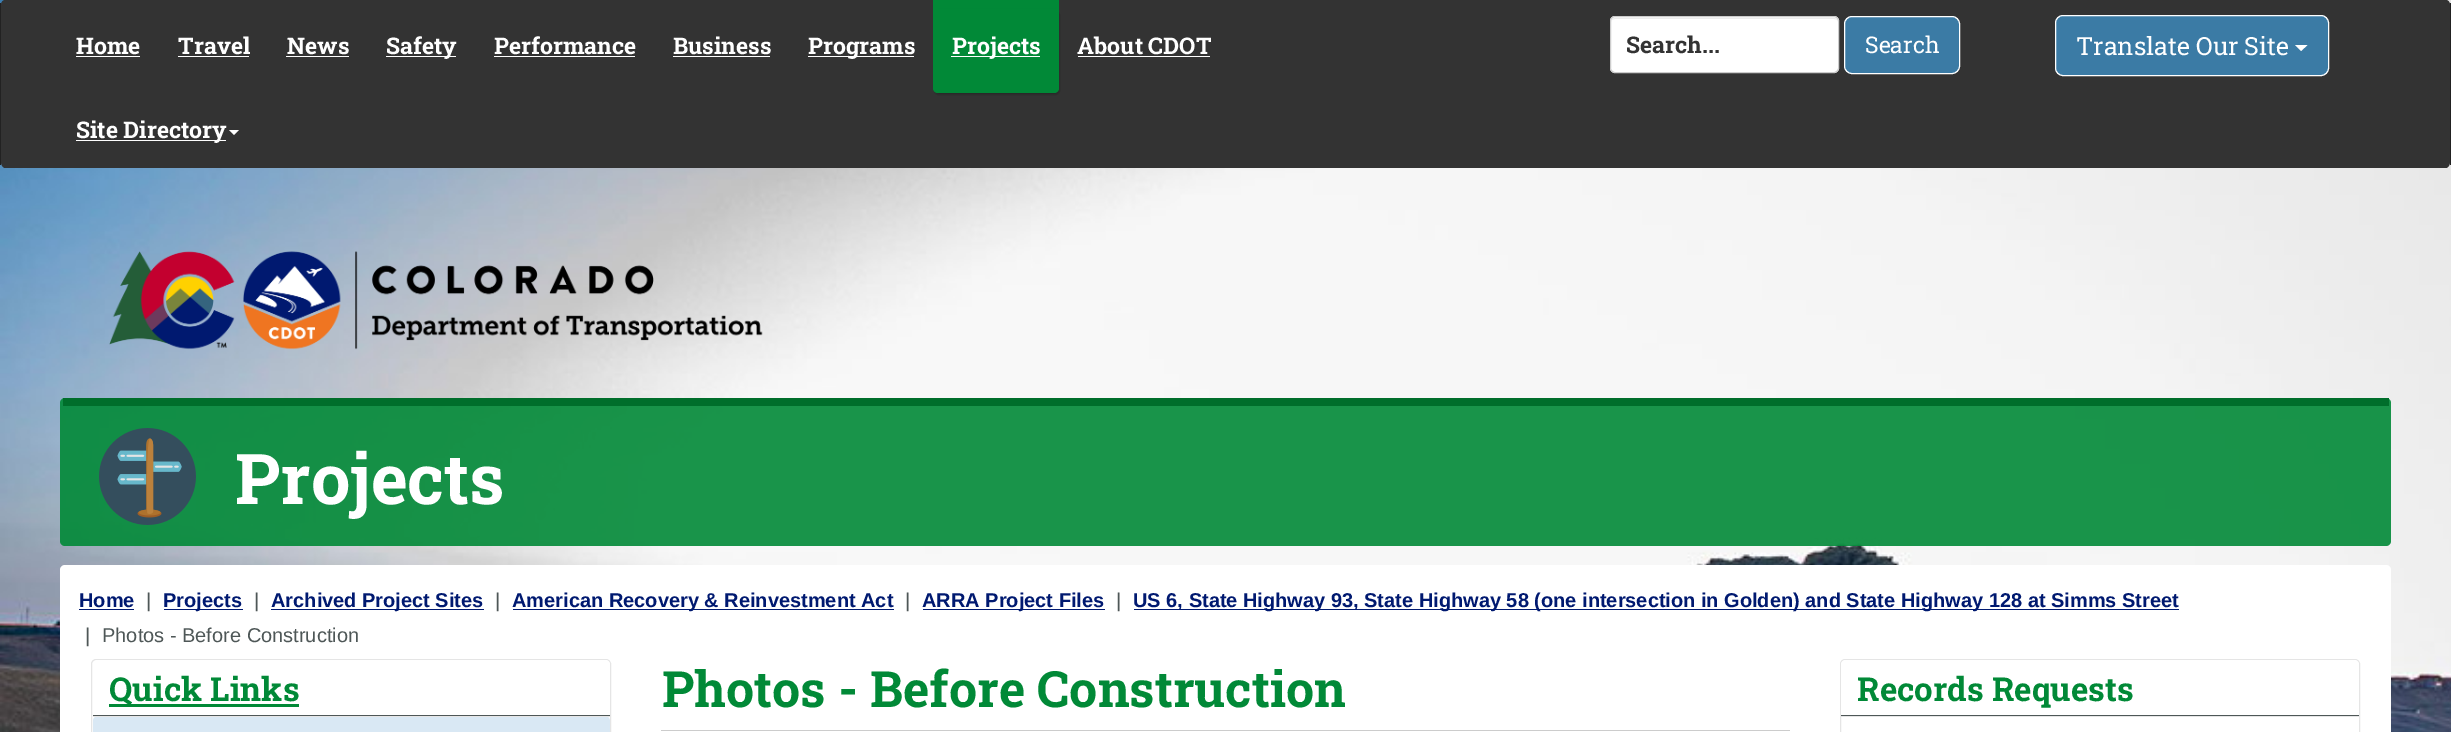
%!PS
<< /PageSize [2451 732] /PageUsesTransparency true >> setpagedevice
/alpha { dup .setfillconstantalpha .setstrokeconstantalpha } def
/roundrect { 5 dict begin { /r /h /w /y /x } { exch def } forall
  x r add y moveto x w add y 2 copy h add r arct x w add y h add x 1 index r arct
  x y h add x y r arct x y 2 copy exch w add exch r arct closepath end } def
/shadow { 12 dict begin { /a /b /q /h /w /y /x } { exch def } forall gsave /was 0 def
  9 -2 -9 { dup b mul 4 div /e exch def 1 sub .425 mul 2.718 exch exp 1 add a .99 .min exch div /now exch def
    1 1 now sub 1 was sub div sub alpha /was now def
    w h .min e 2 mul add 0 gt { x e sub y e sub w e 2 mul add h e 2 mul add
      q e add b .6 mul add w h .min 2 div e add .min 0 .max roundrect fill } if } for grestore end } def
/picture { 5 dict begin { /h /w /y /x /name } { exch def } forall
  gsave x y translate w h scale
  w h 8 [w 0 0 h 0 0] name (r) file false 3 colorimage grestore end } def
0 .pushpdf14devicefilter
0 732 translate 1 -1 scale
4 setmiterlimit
1 setgray
0 0 2451 732 rectfill
(img1.rgb) 0 0 2451 732 picture
0.2 setgray
newpath 5 0 moveto 2446 0 lineto 2448 0 2450 2 2450 5 curveto 2450 162 lineto 2450 165 2448 168 2446 168 curveto 5 168 lineto 3 168 1 165 1 162 curveto 1 5 lineto 1 2 3 0 5 0 curveto closepath fill
0.133 setgray
2450 3 1 162 rectfill
0 3 1 162 rectfill
/RobotoSlab-Bold [23 0 0 -23 0 0] selectfont
1 setgray
76 54 moveto (Home) show
76 56 64 1 rectfill
178 54 moveto (Travel) show
178 56 71 1 rectfill
287 54 moveto (News) show
286 56 63 1 rectfill
386 56 70 1 rectfill
386 54 moveto (Safety) show
494 54 moveto (Performance) show
494 56 141 1 rectfill
673 54 moveto (Business) show
673 56 97 1 rectfill
808 56 106 1 rectfill
808 54 moveto (Programs) show
0.004 0.537 0.216 setrgbcolor
933 0 126 9 rectfill
0 setgray
934 11 126 84 5 1 0.2 shadow
0.004 0.537 0.216 setrgbcolor
newpath 933 9 moveto 1059 9 lineto 1059 88 lineto 1059 91 1057 93 1054 93 curveto 938 93 lineto 935 93 933 91 933 88 curveto closepath fill
1 setgray
951 56 89 1 rectfill
952 54 moveto (Projects) show
1077 54 moveto (About CDOT) show
1078 56 132 1 rectfill
76 140 150 1 rectfill
76 138 moveto (Site Directory) show
newpath 229 130 moveto 239 130 lineto 234 135 lineto closepath fill
1610 16 229 57 5 roundrect fill
0.925 setgray
newpath 1615 19 moveto 1834 19 lineto 1836 19 1838 20 1838 22 curveto 1838 20 1836 18 1834 18 curveto 1615 18 lineto 1613 18 1611 20 1611 22 curveto 1611 20 1613 19 1615 19 curveto closepath fill
0.8 setgray
1610.5 16.5 228 56 4.5 roundrect stroke
0.2 setgray
1626 53 moveto (Search...) show
0.231 0.482 0.647 setrgbcolor
1844.5 16.5 115 57 7.5 roundrect gsave fill grestore
1 setgray
stroke
/RobotoSlab-Regular [23 0 0 -23 0 0] selectfont
1865 53 moveto (Search) show
0.231 0.482 0.647 setrgbcolor
2055.5 15.5 273 60 7.5 roundrect gsave fill grestore
1 setgray
stroke
/RobotoSlab-Regular [25 0 0 -25 0 0] selectfont
2076 55 moveto (Translate Our Site) show
newpath 2295 45 moveto 2307.5 45 lineto 2301 51 lineto closepath fill
(img2.rgb) 109 251 654 99 picture
0.9 alpha
0.004 0.537 0.216 setrgbcolor
60 398 2331 148 5 roundrect fill
1 alpha
(img3.rgb) 99 428 97 97 picture
0 0.431 0.169 setrgbcolor
63 398 2326 8 rectfill
/RobotoSlab-Bold [70 0 0 -70 0 0] selectfont
1 setgray
235 504 moveto (Projects) show
60 565 2331 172 5 roundrect fill
/LiberationSans-Bold [20 0 0 -20 0 0] selectfont
0 0.098 0.439 setrgbcolor
79 607 moveto (Home) show
79 609 55 1 rectfill
/LiberationSans-Regular [20 0 0 -20 0 0] selectfont
0.306 0.341 0.341 setrgbcolor
146 607 moveto (|) show
0 0.098 0.439 setrgbcolor
164 609 79 1 rectfill
/LiberationSans-Bold [20 0 0 -20 0 0] selectfont
163 607 moveto (Projects) show
/LiberationSans-Regular [20 0 0 -20 0 0] selectfont
0.306 0.341 0.341 setrgbcolor
254 607 moveto (|) show
0 0.098 0.439 setrgbcolor
271 609 213 1 rectfill
/LiberationSans-Bold [20 0 0 -20 0 0] selectfont
271 607 moveto (Archived Project Sites) show
/LiberationSans-Regular [20 0 0 -20 0 0] selectfont
0.306 0.341 0.341 setrgbcolor
495 607 moveto (|) show
0 0.098 0.439 setrgbcolor
513 609 381 1 rectfill
/LiberationSans-Bold [20 0 0 -20 0 0] selectfont
512 607 moveto (American Recovery & Reinvestment Act) show
/LiberationSans-Regular [20 0 0 -20 0 0] selectfont
0.306 0.341 0.341 setrgbcolor
905 607 moveto (|) show
0 0.098 0.439 setrgbcolor
923 609 182 1 rectfill
/LiberationSans-Bold [20 0 0 -20 0 0] selectfont
922 607 moveto (ARRA Project Files) show
/LiberationSans-Regular [20 0 0 -20 0 0] selectfont
0.306 0.341 0.341 setrgbcolor
1116 607 moveto (|) show
0 0.098 0.439 setrgbcolor
1134 609 1045 1 rectfill
/LiberationSans-Bold [20 0 0 -20 0 0] selectfont
1133 607 moveto (US 6, State Highway 93, State Highway 58 \(one intersection in Golden\) and State Highway 128 at Simms Street) show
/LiberationSans-Regular [20 0 0 -20 0 0] selectfont
0.306 0.341 0.341 setrgbcolor
85 642 moveto (|) show
102 642 moveto (Photos - Before Construction) show
0.898 setgray
91.5 659.5 519 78 4.5 roundrect stroke
1 setgray
newpath 98 660 moveto 605 660 lineto 608 660 610 662 610 665 curveto 610 716 lineto 93 716 lineto 93 665 lineto 93 662 95 660 98 660 curveto closepath fill
0.306 0.341 0.341 setrgbcolor
93 715 517 1 rectfill
0.004 0.537 0.216 setrgbcolor
109 704 190 3 rectfill
/RobotoSlab-Bold [33 0 0 -33 0 0] selectfont
109 701 moveto (Quick Links) show
0.851 0.91 0.957 setrgbcolor
93 716 517 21 5 roundrect fill
0.898 setgray
93 716 517 1 rectfill
0.8 setgray
661 730 1129 1 rectfill
/RobotoSlab-Bold [50 0 0 -50 0 0] selectfont
0.004 0.537 0.216 setrgbcolor
662 707 moveto (Photos - Before Construction) show
0.898 setgray
1840.5 659.5 519 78 4.5 roundrect stroke
1 setgray
newpath 1846 660 moveto 2354 660 lineto 2357 660 2359 662 2359 665 curveto 2359 716 lineto 1841 716 lineto 1841 665 lineto 1841 662 1843 660 1846 660 curveto closepath fill
0.306 0.341 0.341 setrgbcolor
1841 715 518 1 rectfill
/RobotoSlab-Bold [33 0 0 -33 0 0] selectfont
0.004 0.537 0.216 setrgbcolor
1857 701 moveto (Records Requests) show
0.898 setgray
1841 716 518 1 rectfill
.poppdf14devicefilter showpage
